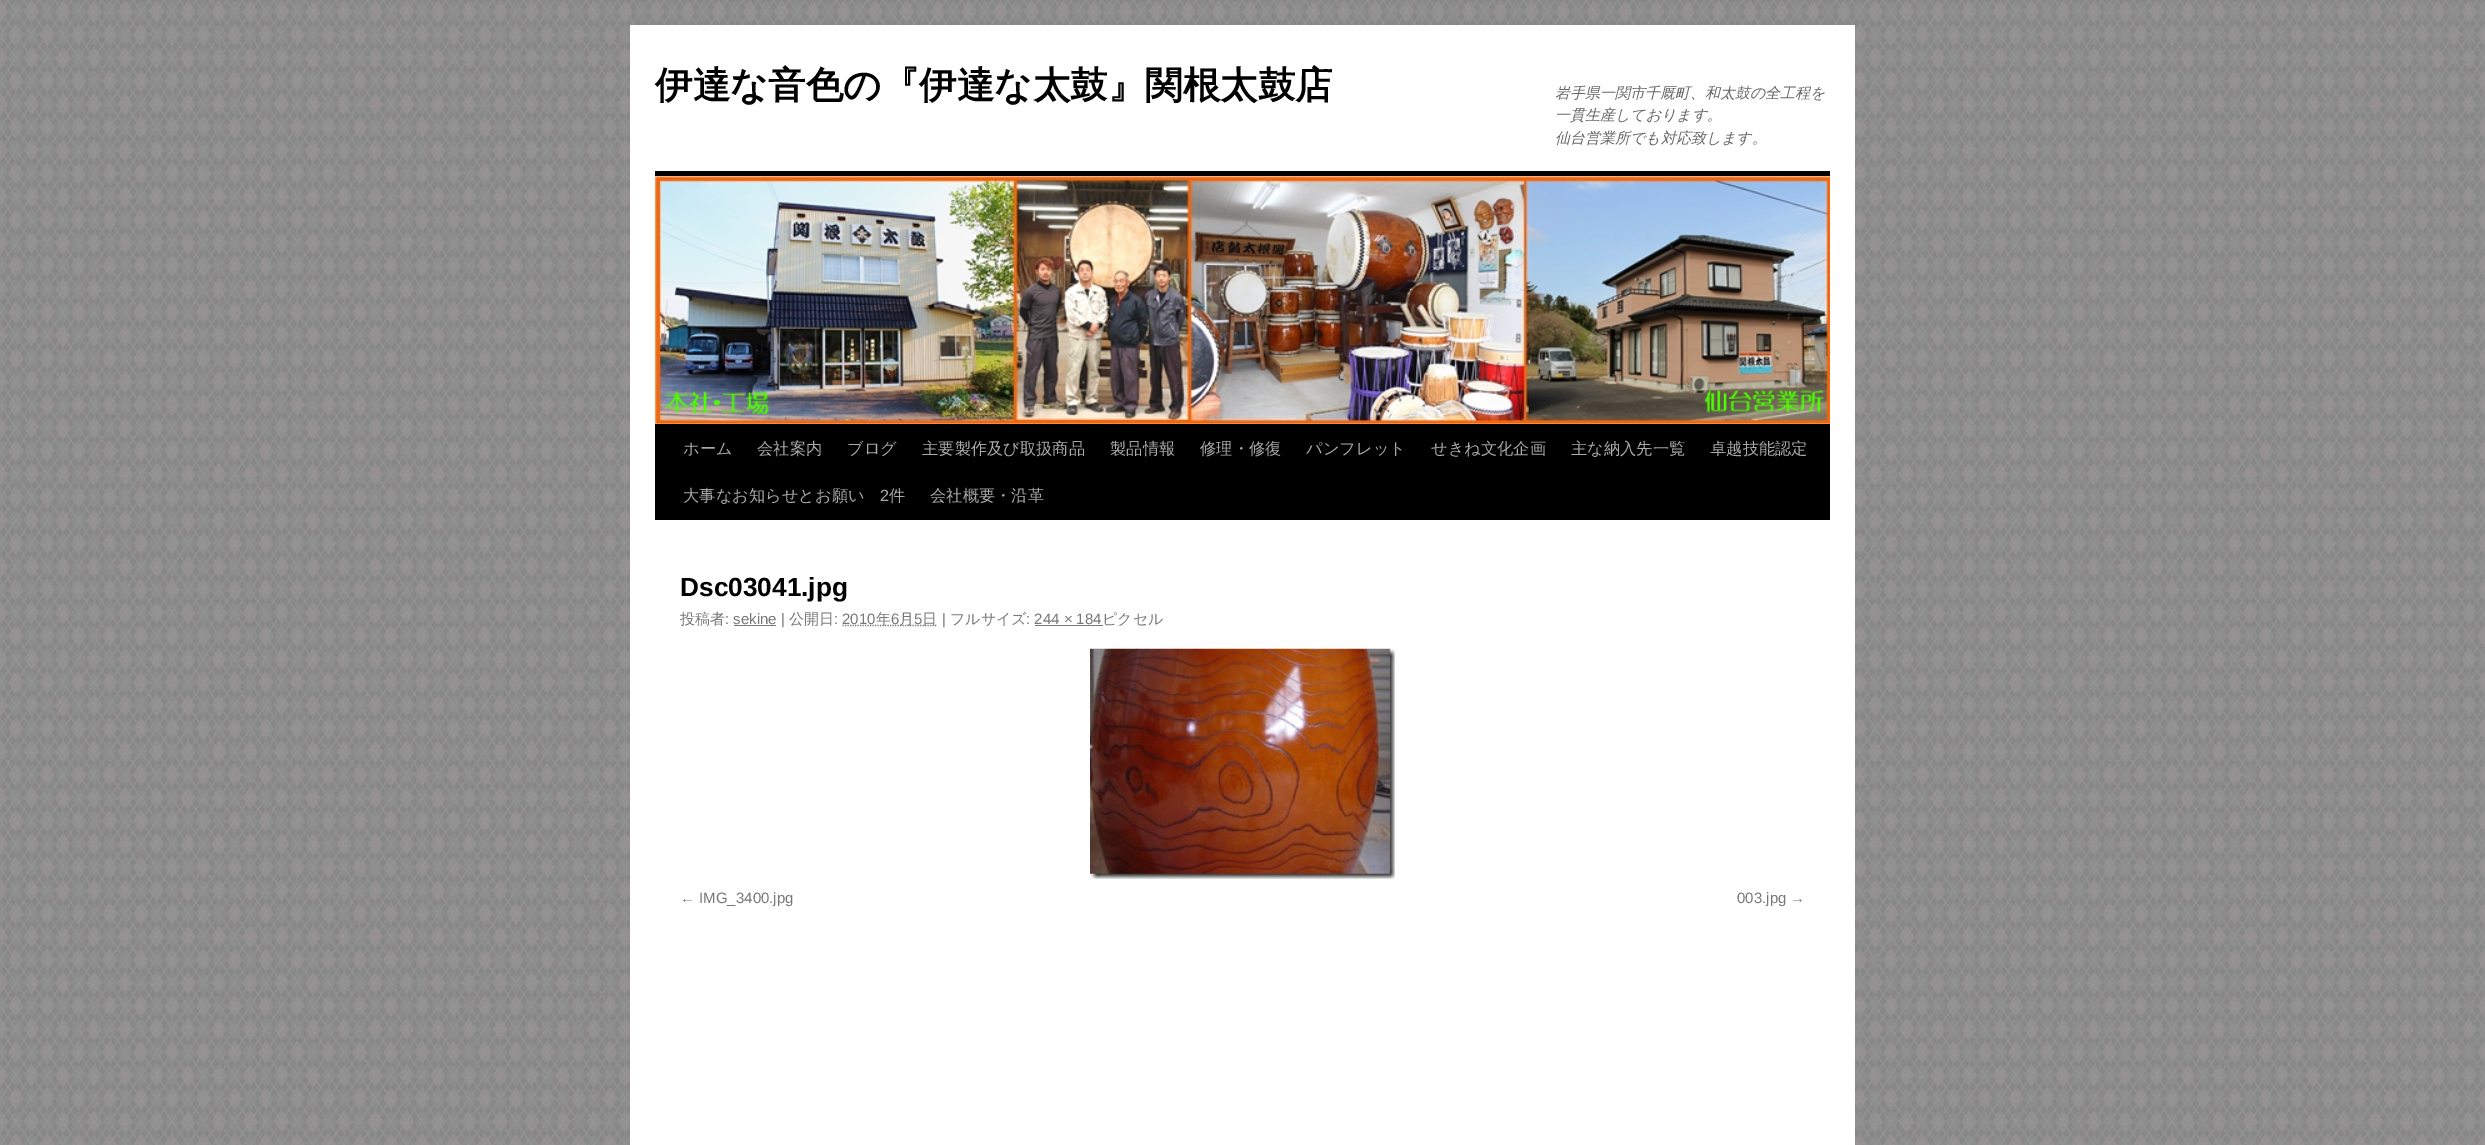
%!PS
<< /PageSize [2485 1145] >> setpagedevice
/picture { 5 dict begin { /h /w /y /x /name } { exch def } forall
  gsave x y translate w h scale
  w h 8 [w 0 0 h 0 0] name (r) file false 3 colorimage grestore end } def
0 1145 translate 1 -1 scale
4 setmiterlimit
1 setgray
0 0 2485 1145 rectfill
(img1.rgb) 0 0 2485 1145 picture
630 25 1225 1120 rectfill
/WenQuanYiZenHei-Bold [37.5 0 0 -37.5 0 0] selectfont
0 setgray
655 98 moveto (伊達な音色の『伊達な太鼓』関根太鼓店) show
/WenQuanYiZenHei-MediumItalic [15 0 0 -15 0 0] selectfont
0.4 setgray
1555 98 moveto (岩手県一関市千厩町、和太鼓の全工程を) show
1555 120 moveto (一貫生産しております。) show
1555 143 moveto (仙台営業所でも対応致します。) show
0 setgray
655 171 1175 5 rectfill
655 424 1175 96 rectfill
(img2.rgb) 655 176 1175 248 picture
/WenQuanYiZenHei-Medium [16.25 0 0 -16.25 0 0] selectfont
0.667 setgray
683 454 moveto (ホーム) show
757 454 moveto (会社案内) show
847 454 moveto (ブログ) show
922 454 moveto (主要製作及び取扱商品) show
1110 454 moveto (製品情報) show
1200 454 moveto (修理・修復) show
1306 454 moveto (パンフレット) show
1431 454 moveto (せきね文化企画) show
1571 454 moveto (主な納入先一覧) show
1710 454 moveto (卓越技能認定) show
683 501 moveto (大事なお知らせとお願い) show
/LiberationSans-Regular [16.25 0 0 -16.25 0 0] selectfont
880 501 moveto (2) show
/WenQuanYiZenHei-Medium [16.25 0 0 -16.25 0 0] selectfont
889 501 moveto (件) show
930 501 moveto (会社概要・沿革) show
/LiberationSans-Bold [26.25 0 0 -26.25 0 0] selectfont
0 setgray
680 596 moveto (Dsc03041.jpg) show
/WenQuanYiZenHei-Medium [15 0 0 -15 0 0] selectfont
0.467 setgray
680 624 moveto (投稿者) show
/LiberationSans-Regular [15 0 0 -15 0 0] selectfont
725 624 moveto (: sekine |) show
/WenQuanYiZenHei-Medium [15 0 0 -15 0 0] selectfont
789 624 moveto (公開日) show
/LiberationSans-Regular [15 0 0 -15 0 0] selectfont
834 624 moveto (:) show
1.2 setlinewidth
[1.25 1.25] 0 setdash
newpath 842.5 625.5 moveto 937.5 625.5 lineto stroke
842 624 moveto (2010) show
/WenQuanYiZenHei-Medium [15 0 0 -15 0 0] selectfont
876 624 moveto (年) show
/LiberationSans-Regular [15 0 0 -15 0 0] selectfont
891 624 moveto (6) show
/WenQuanYiZenHei-Medium [15 0 0 -15 0 0] selectfont
899 624 moveto (月) show
/LiberationSans-Regular [15 0 0 -15 0 0] selectfont
914 624 moveto (5) show
/WenQuanYiZenHei-Medium [15 0 0 -15 0 0] selectfont
922 624 moveto (日) show
/LiberationSans-Regular [15 0 0 -15 0 0] selectfont
942 624 moveto (|) show
/WenQuanYiZenHei-Medium [15 0 0 -15 0 0] selectfont
950 624 moveto (フルサイズ) show
/LiberationSans-Regular [15 0 0 -15 0 0] selectfont
1026 624 moveto (: 244 × 184) show
/WenQuanYiZenHei-Medium [15 0 0 -15 0 0] selectfont
1102 624 moveto (ピクセル) show
734 625 42 1 rectfill
1035 625 68 1 rectfill
(img3.rgb) 1090 648 305 231 picture
/LiberationSans-Regular [15 0 0 -15 0 0] selectfont
680 903 moveto (← IMG_3400.jpg) show
1737 903 moveto (003.jpg →) show
showpage
